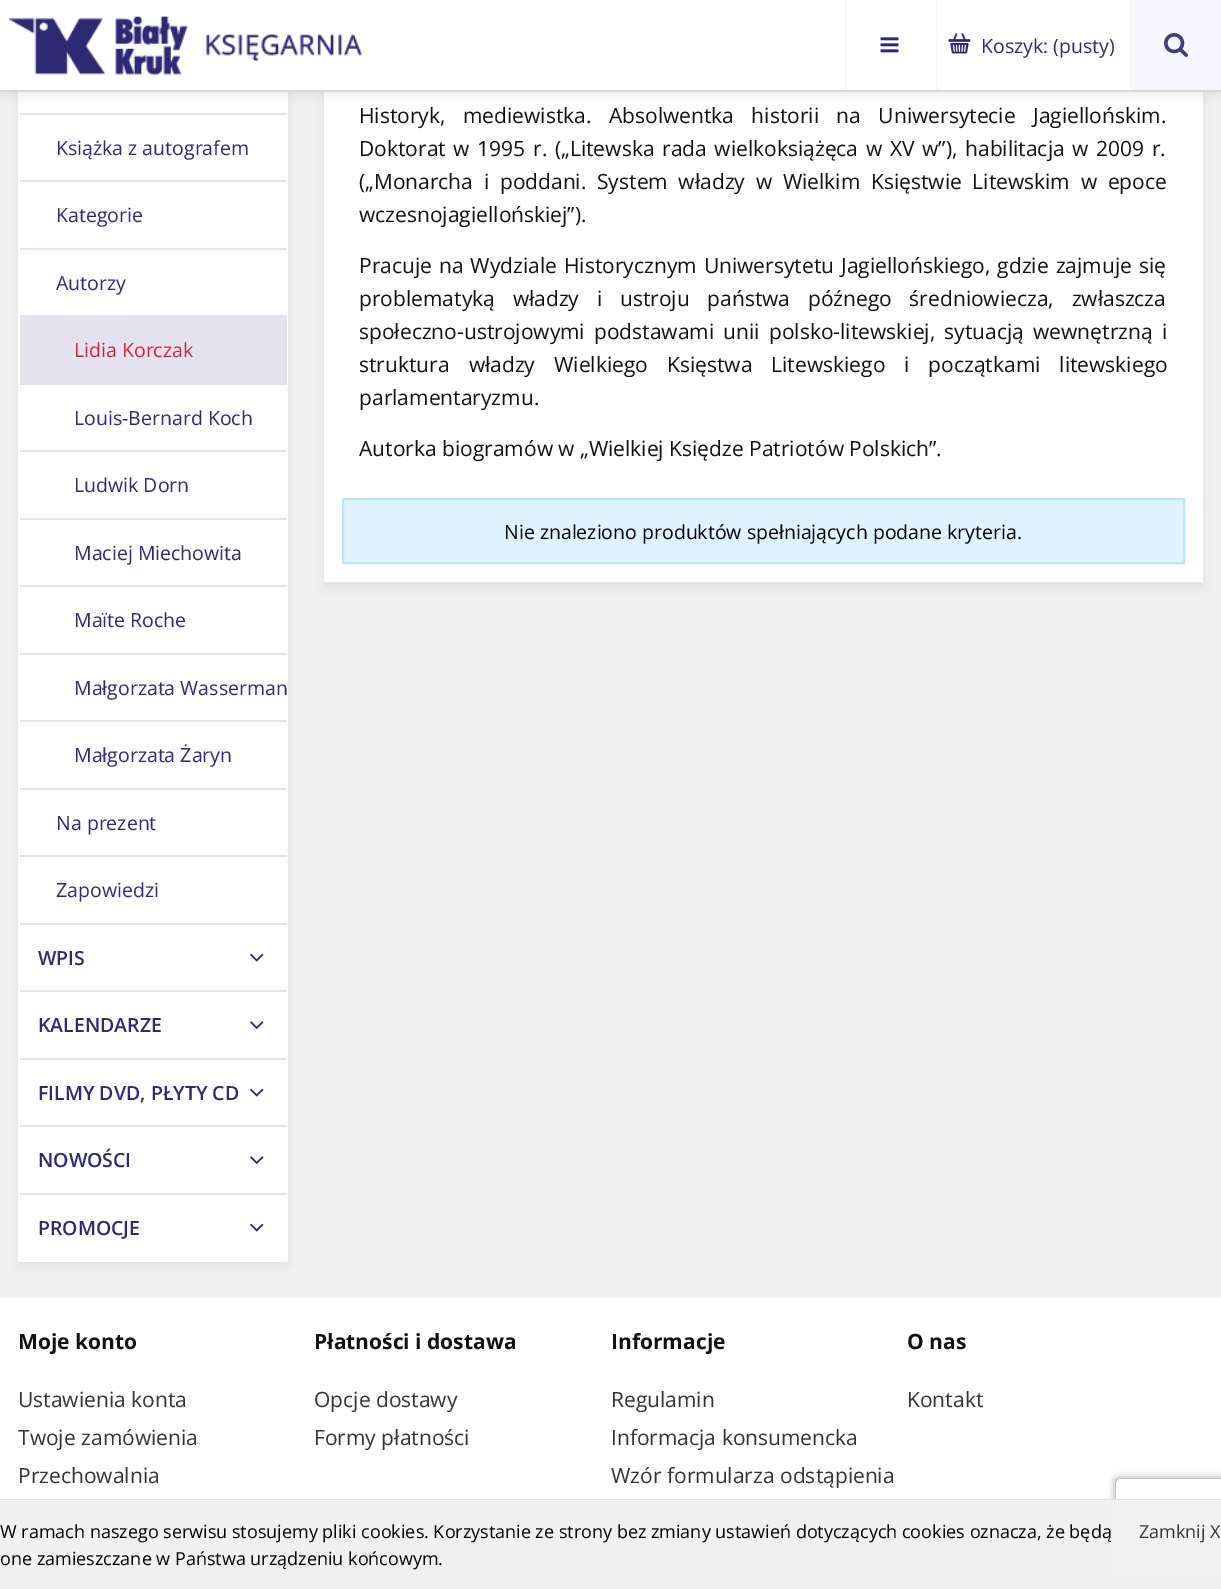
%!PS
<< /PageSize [1221 1589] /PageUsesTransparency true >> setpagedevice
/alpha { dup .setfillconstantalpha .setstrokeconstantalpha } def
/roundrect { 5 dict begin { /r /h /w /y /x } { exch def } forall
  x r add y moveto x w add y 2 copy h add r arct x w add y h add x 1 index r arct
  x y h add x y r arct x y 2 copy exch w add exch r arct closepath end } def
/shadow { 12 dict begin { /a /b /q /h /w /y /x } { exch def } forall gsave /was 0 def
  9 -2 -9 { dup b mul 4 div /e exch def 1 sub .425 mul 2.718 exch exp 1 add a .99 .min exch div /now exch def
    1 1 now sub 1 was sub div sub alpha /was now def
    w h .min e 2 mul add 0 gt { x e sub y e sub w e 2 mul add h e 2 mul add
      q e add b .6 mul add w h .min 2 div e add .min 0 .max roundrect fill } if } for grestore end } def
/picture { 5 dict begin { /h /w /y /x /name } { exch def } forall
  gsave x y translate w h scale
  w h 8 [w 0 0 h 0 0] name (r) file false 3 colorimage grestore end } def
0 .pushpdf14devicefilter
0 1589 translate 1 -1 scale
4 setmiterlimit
0.941 setgray
0 0 1221 1589 rectfill
0.196 setgray
18 -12 270 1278 0 4 0.08 shadow
1 setgray
18 92 270 1170 rectfill
0.196 setgray
324 -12 879 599 0 4 0.08 shadow
1 setgray
324 92 879 490 rectfill
0.196 setgray
0 5 1221 91 0 4 0.08 shadow
1 setgray
0 0 1130 90 rectfill
0.847 setgray
0 90 1221 2 rectfill
(img1.rgb) 9 16 179 59 picture
(img2.rgb) 206 34 156 27 picture
0.969 0.965 0.988 setrgbcolor
845 0 2 90 rectfill
(img3.rgb) 880 37 19 16 picture
936 0 2 90 rectfill
(img4.rgb) 948 33 23 21 picture
/OpenSans-Regular [19.5 0 0 -19.5 0 0] selectfont
0.184 0.157 0.451 setrgbcolor
981 53 moveto (Koszyk: \(pusty\)) show
0.969 0.965 0.988 setrgbcolor
1130 0 91 90 rectfill
(img5.rgb) 1164 33 24 24 picture
0.894 0.89 0.929 setrgbcolor
20 923 267 2 rectfill
20 113 267 2 rectfill
0.184 0.157 0.451 setrgbcolor
56 155 moveto (Książka z autografem) show
0.894 0.89 0.929 setrgbcolor
20 180 267 2 rectfill
0.184 0.157 0.451 setrgbcolor
56 222 moveto (Kategorie) show
0.894 0.89 0.929 setrgbcolor
20 248 267 2 rectfill
0.184 0.157 0.451 setrgbcolor
56 290 moveto (Autorzy) show
0.894 0.89 0.929 setrgbcolor
20 315 267 70 rectfill
0.831 0.129 0.243 setrgbcolor
74 357 moveto (Lidia Korczak) show
0.184 0.157 0.451 setrgbcolor
74 425 moveto (Louis-Bernard Koch) show
0.894 0.89 0.929 setrgbcolor
20 450 267 2 rectfill
0.184 0.157 0.451 setrgbcolor
74 492 moveto (Ludwik Dorn) show
0.894 0.89 0.929 setrgbcolor
20 518 267 2 rectfill
0.184 0.157 0.451 setrgbcolor
74 560 moveto (Maciej Miechowita) show
0.894 0.89 0.929 setrgbcolor
20 585 267 2 rectfill
0.184 0.157 0.451 setrgbcolor
74 627 moveto (Maïte Roche) show
0.894 0.89 0.929 setrgbcolor
20 653 267 2 rectfill
0.184 0.157 0.451 setrgbcolor
74 695 moveto (Małgorzata Wasserman) show
0.894 0.89 0.929 setrgbcolor
20 720 267 2 rectfill
0.184 0.157 0.451 setrgbcolor
74 762 moveto (Małgorzata Żaryn) show
0.894 0.89 0.929 setrgbcolor
20 788 267 2 rectfill
0.184 0.157 0.451 setrgbcolor
56 830 moveto (Na prezent) show
0.894 0.89 0.929 setrgbcolor
20 855 267 2 rectfill
0.184 0.157 0.451 setrgbcolor
56 897 moveto (Zapowiedzi) show
0.894 0.89 0.929 setrgbcolor
20 990 267 2 rectfill
/OpenSans-SemiBold [19.5 0 0 -19.5 0 0] selectfont
0.184 0.157 0.451 setrgbcolor
38 965 moveto (WPIS) show
(img6.rgb) 250 953 14 9 picture
0.894 0.89 0.929 setrgbcolor
20 1058 267 2 rectfill
0.184 0.157 0.451 setrgbcolor
38 1032 moveto (KALENDARZE) show
(img7.rgb) 250 1021 14 8 picture
0.894 0.89 0.929 setrgbcolor
20 1125 267 2 rectfill
0.184 0.157 0.451 setrgbcolor
38 1100 moveto (FILMY DVD, PŁYTY CD) show
(img6.rgb) 250 1088 14 9 picture
0.894 0.89 0.929 setrgbcolor
20 1193 267 2 rectfill
0.184 0.157 0.451 setrgbcolor
38 1167 moveto (NOWOŚCI) show
(img7.rgb) 250 1156 14 8 picture
38 1235 moveto (PROMOCJE) show
(img6.rgb) 250 1223 14 9 picture
/OpenSans-Regular [21 0 0 -21 0 0] selectfont
0.067 setgray
359 123 moveto 12 0 32 (Historyk, mediewistka. Absolwentka historii na Uniwersytecie Jagiellońskim.) widthshow
359 156 moveto 2.25 0 32 (Doktorat w 1995 r. \(„Litewska rada wielkoksiążęca w XV w”\), habilitacja w 2009 r.) widthshow
359 189 moveto 5.25 0 32 (\(„Monarcha i poddani. System władzy w Wielkim Księstwie Litewskim w epoce) widthshow
359 222 moveto (wczesnojagiellońskiej”\).) show
359 273 moveto 1.5 0 32 (Pracuje na Wydziale Historycznym Uniwersytetu Jagiellońskiego, gdzie zajmuje się) widthshow
359 306 moveto 12.25 0 32 (problematyką władzy i ustroju państwa późnego średniowiecza, zwłaszcza) widthshow
359 339 moveto 3.75 0 32 (społeczno-ustrojowymi podstawami unii polsko-litewskiej, sytuacją wewnętrzną i) widthshow
359 372 moveto 13.5 0 32 (struktura władzy Wielkiego Księstwa Litewskiego i początkami litewskiego) widthshow
359 405 moveto (parlamentaryzmu.) show
359 456 moveto (Autorka biogramów w „Wielkiej Księdze Patriotów Polskich”.) show
0.871 0.949 1 setrgbcolor
newpath 343 499 moveto 1184 499 lineto 1184 563 lineto 343 563 lineto closepath gsave fill grestore
0.718 0.898 0.996 setrgbcolor
2 setlinewidth
stroke
/OpenSans-Regular [19.5 0 0 -19.5 0 0] selectfont
0 setgray
504 539 moveto (Nie znaleziono produktów spełniających podane kryteria.) show
1 setgray
0 1298 1221 201 rectfill
/OpenSans-Bold [21 0 0 -21 0 0] selectfont
0.067 setgray
18 1349 moveto (Moje konto) show
/OpenSans-Regular [21 0 0 -21 0 0] selectfont
0.2 setgray
18 1407 moveto (Ustawienia konta) show
18 1445 moveto (Twoje zamówienia) show
18 1483 moveto (Przechowalnia) show
/OpenSans-Bold [21 0 0 -21 0 0] selectfont
0.067 setgray
314 1349 moveto (Płatności i dostawa) show
/OpenSans-Regular [21 0 0 -21 0 0] selectfont
0.2 setgray
314 1407 moveto (Opcje dostawy) show
314 1445 moveto (Formy płatności) show
/OpenSans-Bold [21 0 0 -21 0 0] selectfont
0.067 setgray
611 1349 moveto (Informacje) show
/OpenSans-Regular [21 0 0 -21 0 0] selectfont
0.2 setgray
611 1407 moveto (Regulamin) show
611 1445 moveto (Informacja konsumencka) show
611 1483 moveto (Wzór formularza odstąpienia) show
/OpenSans-Bold [21 0 0 -21 0 0] selectfont
0.067 setgray
907 1349 moveto (O nas) show
/OpenSans-Regular [21 0 0 -21 0 0] selectfont
0.2 setgray
907 1407 moveto (Kontakt) show
gsave
newpath 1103 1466 moveto 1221 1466 lineto 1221 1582 lineto 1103 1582 lineto closepath 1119 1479 moveto 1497 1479 lineto 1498.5 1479 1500 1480.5 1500 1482 curveto 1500 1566 lineto 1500 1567.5 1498.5 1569 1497 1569 curveto 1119 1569 lineto 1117.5 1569 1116 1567.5 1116 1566 curveto 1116 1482 lineto 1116 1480.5 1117.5 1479 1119 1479 curveto closepath eoclip newpath
0.502 setgray
1116 1479 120 90 3 4 1 shadow
grestore
0.878 setgray
0 1499 1221 1 rectfill
0.945 setgray
1107 1500 114 78 rectfill
/OpenSans-Regular [18 0 0 -18 0 0] selectfont
0 setgray
0 1538 moveto (W ramach naszego serwisu stosujemy pliki cookies. Korzystanie ze strony bez zmiany ustawień dotyczących cookies oznacza, że będą) show
0.2 setgray
1139 1538 moveto (Zamknij X) show
0 setgray
0 1565 moveto (one zamieszczane w Państwa urządzeniu końcowym.) show
.poppdf14devicefilter showpage
